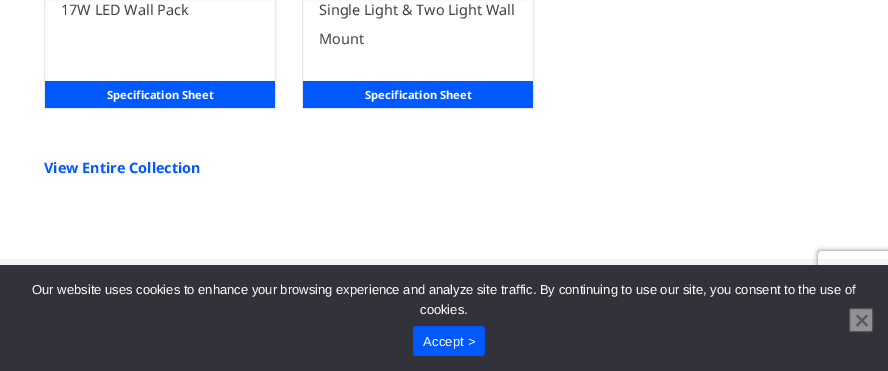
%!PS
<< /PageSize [888 371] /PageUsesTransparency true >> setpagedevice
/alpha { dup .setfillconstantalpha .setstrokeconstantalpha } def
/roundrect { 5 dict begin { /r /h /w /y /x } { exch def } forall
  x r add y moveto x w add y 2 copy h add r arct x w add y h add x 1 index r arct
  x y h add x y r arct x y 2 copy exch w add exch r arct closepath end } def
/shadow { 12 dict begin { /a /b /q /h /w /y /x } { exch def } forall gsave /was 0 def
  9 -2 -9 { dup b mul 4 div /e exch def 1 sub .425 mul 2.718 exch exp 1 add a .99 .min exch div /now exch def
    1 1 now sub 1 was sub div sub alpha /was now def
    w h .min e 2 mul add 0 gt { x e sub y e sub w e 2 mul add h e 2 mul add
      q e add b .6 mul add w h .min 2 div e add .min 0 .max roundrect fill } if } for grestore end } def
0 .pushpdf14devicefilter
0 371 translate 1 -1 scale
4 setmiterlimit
1 setgray
0 0 888 371 rectfill
0.91 setgray
44.5 -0.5 231 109 rectstroke
/NotoSans-Regular [14.4 0 0 -14.4 0 0] selectfont
0.251 0.259 0.278 setrgbcolor
61 15 moveto (17W LED Wall Pack) show
0 0.345 1 setrgbcolor
45 81 230 27 rectfill
/NotoSans-Bold [11.25 0 0 -11.25 0 0] selectfont
1 setgray
107 99 moveto (Specification Sheet) show
0.91 setgray
302.5 -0.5 231 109 rectstroke
/NotoSans-Regular [14.4 0 0 -14.4 0 0] selectfont
0.251 0.259 0.278 setrgbcolor
319 15 moveto (Single Light & Two Light Wall) show
319 44 moveto (Mount) show
0 0.345 1 setrgbcolor
303 81 230 27 rectfill
/NotoSans-Bold [11.25 0 0 -11.25 0 0] selectfont
1 setgray
365 99 moveto (Specification Sheet) show
/NotoSans-Bold [14.4 0 0 -14.4 0 0] selectfont
0 0.345 1 setrgbcolor
44 173 moveto (View Entire Collection) show
0.961 setgray
0 259 888 6 rectfill
gsave
newpath 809 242 moveto 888 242 lineto 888 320 lineto 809 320 lineto closepath 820 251 moveto 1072 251 lineto 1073 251 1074 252 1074 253 curveto 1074 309 lineto 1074 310 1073 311 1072 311 curveto 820 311 lineto 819 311 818 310 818 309 curveto 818 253 lineto 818 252 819 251 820 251 curveto closepath eoclip newpath
0.502 setgray
818 251 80 60 2 2.5 1 shadow
grestore
0.196 0.196 0.227 setrgbcolor
0 265 888 106 rectfill
/LiberationSans-Regular [13 0 0 -13 0 0] selectfont
1 setgray
32 294 moveto (Our website uses cookies to enhance your browsing experience and analyze site traffic. By continuing to use our site, you consent to the use of) show
420 314 moveto (cookies.) show
0.569 0.569 0.584 setrgbcolor
849.5 308.5 23 23 1.5 roundrect gsave fill grestore
0.329 0.329 0.345 setrgbcolor
stroke
0.349 0.349 0.365 setrgbcolor
newpath 866.5 314.5 moveto 868 316 lineto 857.5 326.5 lineto 856 325 lineto closepath fill
newpath 856 316 moveto 857.5 314.5 lineto 868 325 lineto 866.5 326.5 lineto closepath fill
0 0.345 1 setrgbcolor
413 326 72 30 3 roundrect fill
1 setgray
423 346 moveto 0.25 0 (Accept >) ashow
.poppdf14devicefilter showpage
